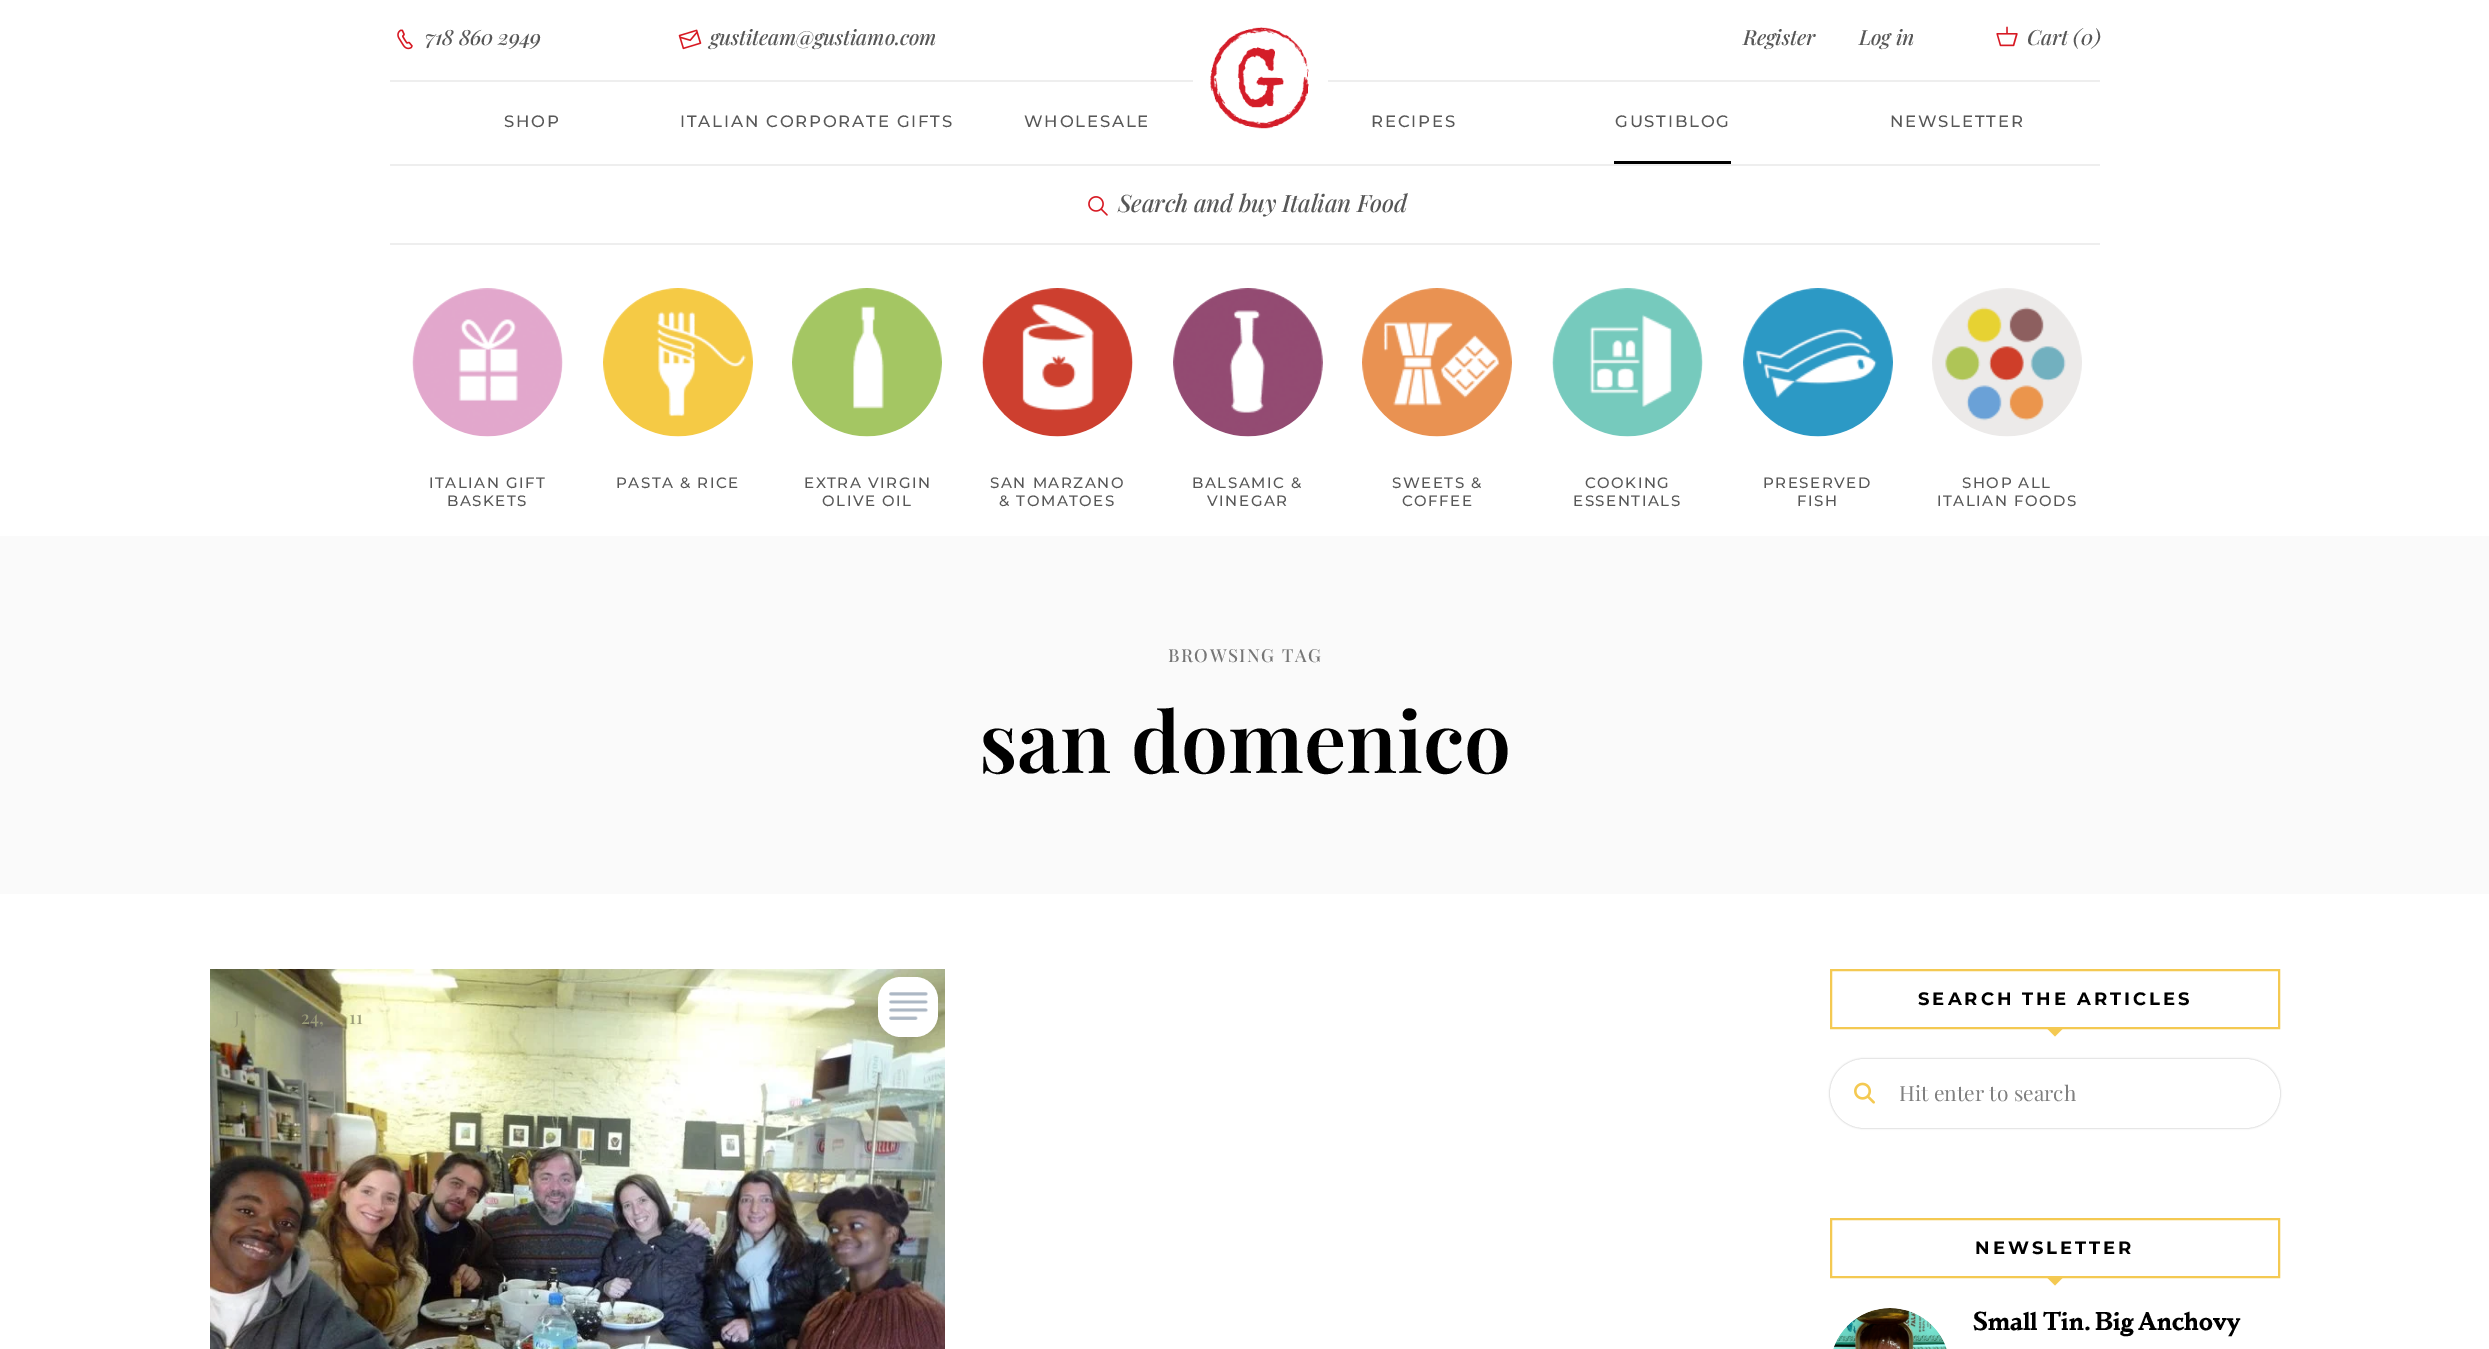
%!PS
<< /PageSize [2489 1349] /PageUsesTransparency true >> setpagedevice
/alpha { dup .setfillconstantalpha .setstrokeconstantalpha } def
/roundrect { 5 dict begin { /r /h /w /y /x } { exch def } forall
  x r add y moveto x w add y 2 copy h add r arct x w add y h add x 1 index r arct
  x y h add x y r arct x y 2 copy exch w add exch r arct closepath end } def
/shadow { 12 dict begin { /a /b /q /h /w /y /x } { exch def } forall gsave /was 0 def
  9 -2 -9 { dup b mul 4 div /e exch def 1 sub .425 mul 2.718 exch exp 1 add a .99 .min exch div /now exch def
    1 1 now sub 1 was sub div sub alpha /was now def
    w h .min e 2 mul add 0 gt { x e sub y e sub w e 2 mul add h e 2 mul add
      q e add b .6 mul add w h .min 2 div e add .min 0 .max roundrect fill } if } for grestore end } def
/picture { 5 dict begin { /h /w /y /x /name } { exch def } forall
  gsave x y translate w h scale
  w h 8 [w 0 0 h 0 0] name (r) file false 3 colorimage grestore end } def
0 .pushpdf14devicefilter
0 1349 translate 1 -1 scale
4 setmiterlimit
1 setgray
0 0 2489 1349 rectfill
0.933 setgray
390 80 1710 2 rectfill
1 setgray
1193 26 135 105 52.5 roundrect fill
(img1.rgb) 1210 27 99 102 picture
(img2.rgb) 397 29 16 21 picture
/PlayfairDisplay-MediumItalic [21 0 0 -21 0 0] selectfont
0.341 setgray
425 45 moveto -0.25 0 (718 860 2949) ashow
(img3.rgb) 678 29 24 21 picture
710 45 moveto -0.25 0 (gustiteam@gustiamo.com) ashow
1743 45 moveto -0.25 0 (Register) ashow
1859 45 moveto -0.25 0 (Log in) ashow
(img4.rgb) 1996 26 22 21 picture
2027 45 moveto -0.25 0 (Cart \(0\)) ashow
0.933 setgray
390 164 1710 2 rectfill
/Montserrat-Medium [16.5 0 0 -16.5 0 0] selectfont
0.341 setgray
504 127 moveto 1.8 0 (SHOP) ashow
680 127 moveto 1.8 0 (ITALIAN CORPORATE GIFTS) ashow
1024 127 moveto 1.8 0 (WHOLESALE) ashow
1371 127 moveto 1.8 0 (RECIPES) ashow
0 setgray
1614 161 117 3 rectfill
0.341 setgray
1615 127 moveto 1.8 0 (GUSTIBLOG) ashow
1890 127 moveto 1.8 0 (NEWSLETTER) ashow
0.933 setgray
390 243 1710 2 rectfill
(img5.rgb) 1088 196 20 20 picture
/PlayfairDisplay-MediumItalic [24 0 0 -24 0 0] selectfont
0.341 setgray
1118 212 moveto -0.25 0 (Search and buy Italian Food) ashow
(img6.rgb) 412 288 151 149 picture
/Montserrat-Medium [15 0 0 -15 0 0] selectfont
429 488 moveto 1.5 0 (ITALIAN GIFT) ashow
447 506 moveto 1.5 0 (BASKETS) ashow
(img7.rgb) 603 288 150 149 picture
616 488 moveto 1.5 0 (PASTA & RICE) ashow
(img8.rgb) 792 288 150 149 picture
804 488 moveto 1.5 0 (EXTRA VIRGIN) ashow
822 506 moveto 1.5 0 (OLIVE OIL) ashow
(img9.rgb) 982 288 151 149 picture
990 488 moveto 1.5 0 (SAN MARZANO) ashow
999 506 moveto 1.5 0 (& TOMATOES) ashow
(img10.rgb) 1173 288 150 149 picture
1192 488 moveto 1.5 0 (BALSAMIC &) ashow
1207 506 moveto 1.5 0 (VINEGAR) ashow
(img11.rgb) 1362 288 150 149 picture
1392 488 moveto 1.5 0 (SWEETS &) ashow
1402 506 moveto 1.5 0 (COFFEE) ashow
(img12.rgb) 1552 288 151 149 picture
1585 488 moveto 1.5 0 (COOKING) ashow
1573 506 moveto 1.5 0 (ESSENTIALS) ashow
(img13.rgb) 1743 288 150 149 picture
1763 488 moveto 1.5 0 (PRESERVED) ashow
1797 506 moveto 1.5 0 (FISH) ashow
(img14.rgb) 1932 288 150 149 picture
1962 488 moveto 1.5 0 (SHOP ALL) ashow
1937 506 moveto 1.5 0 (ITALIAN FOODS) ashow
0.98 setgray
0 536 2489 358 rectfill
/PlayfairDisplay-Medium [18 0 0 -18 0 0] selectfont
0.463 setgray
1168 662 moveto 1.5 0 (BROWSING TAG) ashow
/PlayfairDisplay-SemiBold [84 0 0 -84 0 0] selectfont
0 setgray
979 773 moveto (san domenico) show
(img15.rgb) 210 969 735 380 picture
/PlayfairDisplay-Medium [18 0 0 -18 0 0] selectfont
0.604 0.612 0.475 setrgbcolor
234 1024 moveto (J) show
301 1024 moveto (24,) show
349 1024 moveto (11) show
1 setgray
878 977 60 60 23 roundrect fill
(img16.rgb) 889 992 39 28 picture
0.957 0.788 0.322 setrgbcolor
2 setlinewidth
1831 970 448 58 rectstroke
/Montserrat-Bold [18 0 0 -18 0 0] selectfont
0 setgray
1918 1005 moveto 3 0 (SEARCH THE ARTICLES) ashow
0.957 0.788 0.322 setrgbcolor
newpath 2046 1027.5 moveto 2064 1027.5 lineto 2055 1036.5 lineto closepath fill
0 setgray
1830 1059 450 69 34.5 1 0.3 shadow
1 setgray
1830 1059 450 69 34.5 roundrect fill
(img17.rgb) 1854 1082 21 22 picture
/PlayfairDisplay-Regular [21 0 0 -21 0 0] selectfont
0.502 setgray
1899 1101 moveto (Hit enter to search) show
0.957 0.788 0.322 setrgbcolor
1831 1219 448 58 rectstroke
/Montserrat-Bold [18 0 0 -18 0 0] selectfont
0 setgray
1975 1254 moveto 3 0 (NEWSLETTER) ashow
0.957 0.788 0.322 setrgbcolor
newpath 2046 1276.5 moveto 2064 1276.5 lineto 2055 1285.5 lineto closepath fill
(img18.rgb) 1833 1308 114 41 picture
/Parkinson-Bold [24 0 0 -24 0 0] selectfont
0 setgray
1973 1330 moveto (Small Tin. Big Anchovy) show
.poppdf14devicefilter showpage
